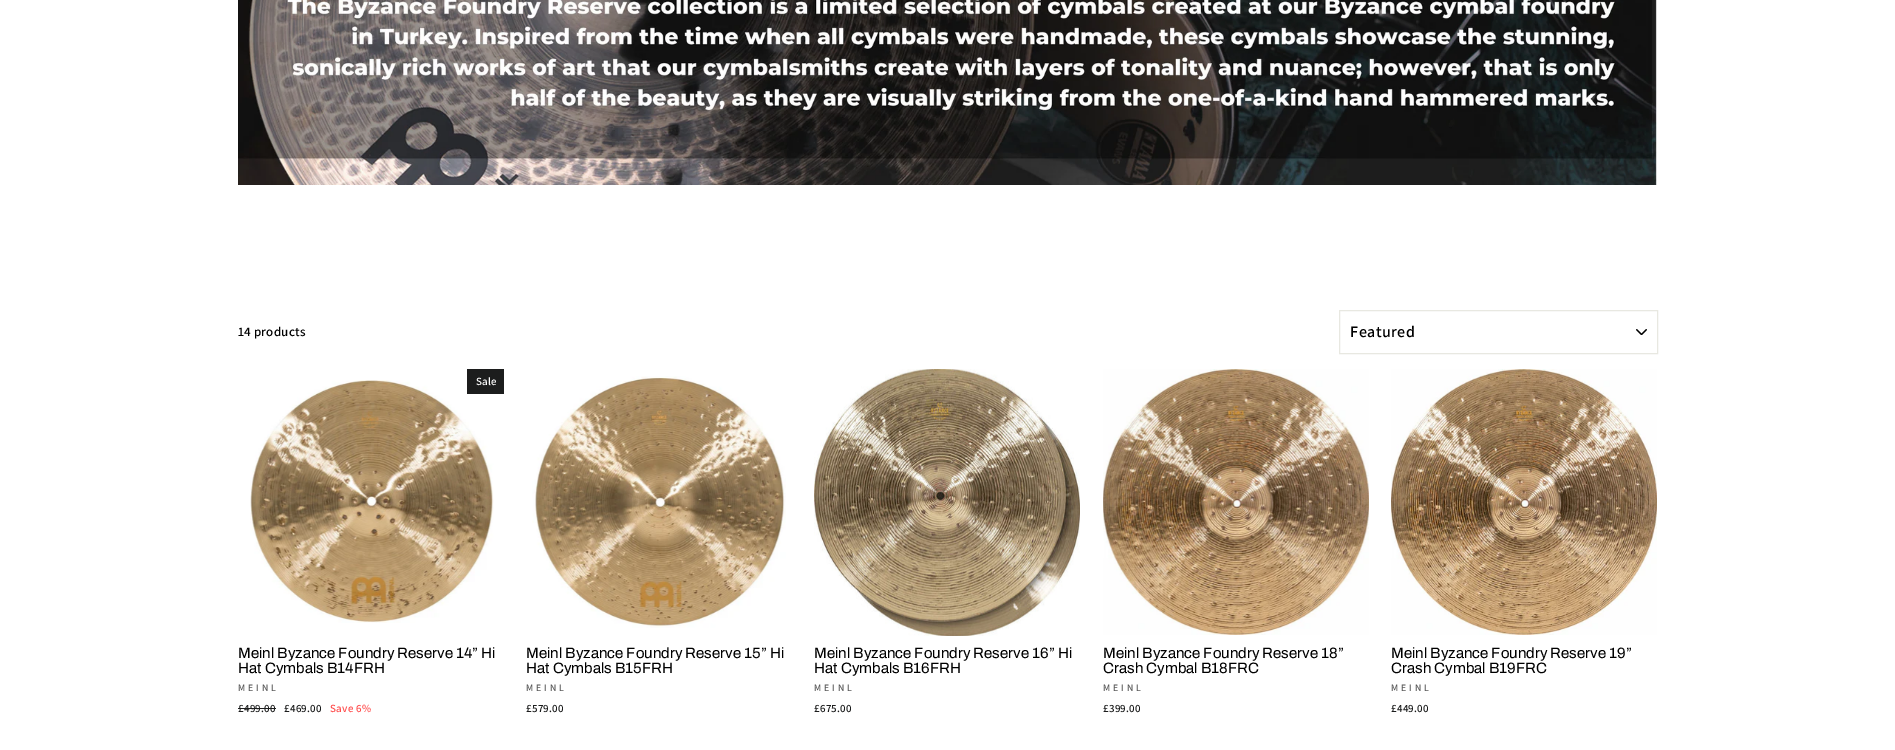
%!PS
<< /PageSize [1895 750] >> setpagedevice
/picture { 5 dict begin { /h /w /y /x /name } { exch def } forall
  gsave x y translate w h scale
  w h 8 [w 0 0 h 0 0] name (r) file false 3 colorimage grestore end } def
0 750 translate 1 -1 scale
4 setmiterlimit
1 setgray
0 0 1895 750 rectfill
(img1.rgb) 238 0 1419 185 picture
/Assistant-SemiBold [13 0 0 -13 0 0] selectfont
0 setgray
238 336 moveto 0.25 0 (14 products) ashow
(img2.rgb) 1636 329 11 6 picture
0.91 0.91 0.882 setrgbcolor
1339.5 310.5 318 43 rectstroke
/Assistant-SemiBold [16 0 0 -16 0 0] selectfont
0 setgray
1350 337 moveto 0.5 0 (Featured) ashow
(img3.rgb) 250 380 244 243 picture
0.11 0.114 0.114 setrgbcolor
467 369 37 25 rectfill
/Assistant-SemiBold [11 0 0 -11 0 0] selectfont
1 setgray
476 385 moveto 0.25 0 (Sale) ashow
/Archivo-Regular [15 0 0 -15 0 0] selectfont
0 setgray
238 658 moveto (Meinl Byzance Foundry Reserve 14” Hi) show
238 673 moveto (Hat Cymbals B14FRH) show
/Assistant-SemiBold [9.75 0 0 -9.75 0 0] selectfont
0.349 setgray
238 691 moveto 3 0 (MEINL) ashow
/Assistant-SemiBold [11 0 0 -11 0 0] selectfont
0.11 0.114 0.114 setrgbcolor
238 712 moveto 0.25 0 (£499.00) ashow
238 708 38 1 rectfill
284 712 moveto 0.25 0 (£469.00) ashow
1 0.306 0.306 setrgbcolor
330 712 moveto 0.25 0 (Save 6%) ashow
(img4.rgb) 532 376 254 252 picture
/Archivo-Regular [15 0 0 -15 0 0] selectfont
0 setgray
526 658 moveto (Meinl Byzance Foundry Reserve 15” Hi) show
526 673 moveto (Hat Cymbals B15FRH) show
/Assistant-SemiBold [9.75 0 0 -9.75 0 0] selectfont
0.349 setgray
526 691 moveto 3 0 (MEINL) ashow
/Assistant-SemiBold [11 0 0 -11 0 0] selectfont
0.11 0.114 0.114 setrgbcolor
526 712 moveto 0.25 0 (£579.00) ashow
(img5.rgb) 814 369 266 267 picture
/Archivo-Regular [15 0 0 -15 0 0] selectfont
0 setgray
814 658 moveto (Meinl Byzance Foundry Reserve 16” Hi) show
814 673 moveto (Hat Cymbals B16FRH) show
/Assistant-SemiBold [9.75 0 0 -9.75 0 0] selectfont
0.349 setgray
814 691 moveto 3 0 (MEINL) ashow
/Assistant-SemiBold [11 0 0 -11 0 0] selectfont
0.11 0.114 0.114 setrgbcolor
814 712 moveto 0.25 0 (£675.00) ashow
(img6.rgb) 1103 369 266 266 picture
/Archivo-Regular [15 0 0 -15 0 0] selectfont
0 setgray
1103 658 moveto (Meinl Byzance Foundry Reserve 18”) show
1103 673 moveto (Crash Cymbal B18FRC) show
/Assistant-SemiBold [9.75 0 0 -9.75 0 0] selectfont
0.349 setgray
1103 691 moveto 3 0 (MEINL) ashow
/Assistant-SemiBold [11 0 0 -11 0 0] selectfont
0.11 0.114 0.114 setrgbcolor
1103 712 moveto 0.25 0 (£399.00) ashow
(img7.rgb) 1391 369 266 266 picture
/Archivo-Regular [15 0 0 -15 0 0] selectfont
0 setgray
1391 658 moveto (Meinl Byzance Foundry Reserve 19”) show
1391 673 moveto (Crash Cymbal B19FRC) show
/Assistant-SemiBold [9.75 0 0 -9.75 0 0] selectfont
0.349 setgray
1391 691 moveto 3 0 (MEINL) ashow
/Assistant-SemiBold [11 0 0 -11 0 0] selectfont
0.11 0.114 0.114 setrgbcolor
1391 712 moveto 0.25 0 (£449.00) ashow
showpage
